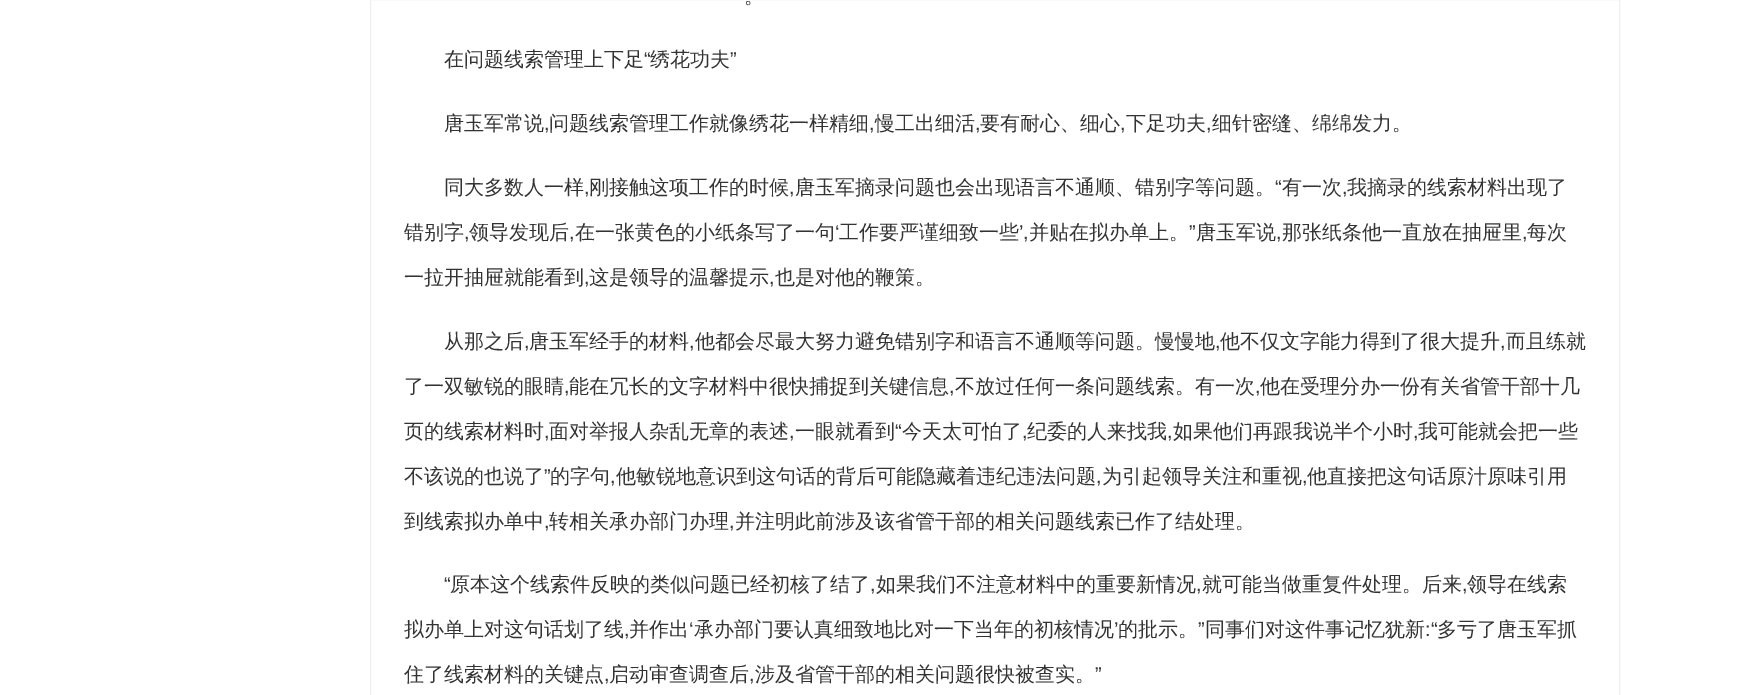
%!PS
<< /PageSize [1739 695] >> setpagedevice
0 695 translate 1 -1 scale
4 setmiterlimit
1 setgray
0 0 1739 695 rectfill
0.937 setgray
370.5 -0.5 1249 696 rectstroke
/WenQuanYiZenHei-Medium [20 0 0 -20 0 0] selectfont
0.2 setgray
744 3 moveto (。) show
444 66 moveto (在问题线索管理上下足) show
/LiberationSans-Regular [20 0 0 -20 0 0] selectfont
644 66 moveto (“) show
/WenQuanYiZenHei-Medium [20 0 0 -20 0 0] selectfont
650 66 moveto (绣花功夫) show
/LiberationSans-Regular [20 0 0 -20 0 0] selectfont
730 66 moveto (”) show
/WenQuanYiZenHei-Medium [20 0 0 -20 0 0] selectfont
444 130 moveto (唐玉军常说) show
/LiberationSans-Regular [20 0 0 -20 0 0] selectfont
544 130 moveto (,) show
/WenQuanYiZenHei-Medium [20 0 0 -20 0 0] selectfont
549 130 moveto (问题线索管理工作就像绣花一样精细) show
/LiberationSans-Regular [20 0 0 -20 0 0] selectfont
869 130 moveto (,) show
/WenQuanYiZenHei-Medium [20 0 0 -20 0 0] selectfont
875 130 moveto (慢工出细活) show
/LiberationSans-Regular [20 0 0 -20 0 0] selectfont
975 130 moveto (,) show
/WenQuanYiZenHei-Medium [20 0 0 -20 0 0] selectfont
980 130 moveto (要有耐心、细心) show
/LiberationSans-Regular [20 0 0 -20 0 0] selectfont
1120 130 moveto (,) show
/WenQuanYiZenHei-Medium [20 0 0 -20 0 0] selectfont
1126 130 moveto (下足功夫) show
/LiberationSans-Regular [20 0 0 -20 0 0] selectfont
1206 130 moveto (,) show
/WenQuanYiZenHei-Medium [20 0 0 -20 0 0] selectfont
1212 130 moveto (细针密缝、绵绵发力。) show
444 194 moveto (同大多数人一样) show
589 194 moveto (刚接触这项工作的时候) show
795 194 moveto (唐玉军摘录问题也会出现语言不通顺、错别字等问题。) show
/LiberationSans-Regular [20 0 0 -20 0 0] selectfont
1275 194 moveto (“) show
/WenQuanYiZenHei-Medium [20 0 0 -20 0 0] selectfont
1282 194 moveto (有一次) show
1347 194 moveto (我摘录的线索材料出现了) show
/LiberationSans-Regular [20 0 0 -20 0 0] selectfont
584 194 moveto (,) show
789 194 moveto (,) show
1342 194 moveto (,) show
/WenQuanYiZenHei-Medium [20 0 0 -20 0 0] selectfont
404 239 moveto (错别字) show
469 239 moveto (领导发现后) show
575 239 moveto (在一张黄色的小纸条写了一句) show
/LiberationSans-Regular [20 0 0 -20 0 0] selectfont
835 239 moveto (‘) show
/WenQuanYiZenHei-Medium [20 0 0 -20 0 0] selectfont
839 239 moveto (工作要严谨细致一些) show
/LiberationSans-Regular [20 0 0 -20 0 0] selectfont
1019 239 moveto (’,) show
/WenQuanYiZenHei-Medium [20 0 0 -20 0 0] selectfont
1029 239 moveto (并贴在拟办单上。) show
/LiberationSans-Regular [20 0 0 -20 0 0] selectfont
1189 239 moveto (”) show
/WenQuanYiZenHei-Medium [20 0 0 -20 0 0] selectfont
1196 239 moveto (唐玉军说) show
1282 239 moveto (那张纸条他一直放在抽屉里) show
1527 239 moveto (每次) show
/LiberationSans-Regular [20 0 0 -20 0 0] selectfont
464 239 moveto (,) show
569 239 moveto (,) show
1276 239 moveto (,) show
1522 239 moveto (,) show
/WenQuanYiZenHei-Medium [20 0 0 -20 0 0] selectfont
404 284 moveto (一拉开抽屉就能看到) show
/LiberationSans-Regular [20 0 0 -20 0 0] selectfont
584 284 moveto (,) show
/WenQuanYiZenHei-Medium [20 0 0 -20 0 0] selectfont
589 284 moveto (这是领导的温馨提示) show
/LiberationSans-Regular [20 0 0 -20 0 0] selectfont
769 284 moveto (,) show
/WenQuanYiZenHei-Medium [20 0 0 -20 0 0] selectfont
775 284 moveto (也是对他的鞭策。) show
444 348 moveto (从那之后) show
/LiberationSans-Regular [20 0 0 -20 0 0] selectfont
524 348 moveto (,) show
/WenQuanYiZenHei-Medium [20 0 0 -20 0 0] selectfont
529 348 moveto (唐玉军经手的材料) show
/LiberationSans-Regular [20 0 0 -20 0 0] selectfont
689 348 moveto (,) show
/WenQuanYiZenHei-Medium [20 0 0 -20 0 0] selectfont
695 348 moveto (他都会尽最大努力避免错别字和语言不通顺等问题。慢慢地) show
/LiberationSans-Regular [20 0 0 -20 0 0] selectfont
1215 348 moveto (,) show
/WenQuanYiZenHei-Medium [20 0 0 -20 0 0] selectfont
1220 348 moveto (他不仅文字能力得到了很大提升) show
/LiberationSans-Regular [20 0 0 -20 0 0] selectfont
1500 348 moveto (,) show
/WenQuanYiZenHei-Medium [20 0 0 -20 0 0] selectfont
1506 348 moveto (而且练就) show
404 393 moveto (了一双敏锐的眼睛) show
/LiberationSans-Regular [20 0 0 -20 0 0] selectfont
564 393 moveto (,) show
/WenQuanYiZenHei-Medium [20 0 0 -20 0 0] selectfont
569 393 moveto (能在冗长的文字材料中很快捕捉到关键信息) show
/LiberationSans-Regular [20 0 0 -20 0 0] selectfont
949 393 moveto (,) show
/WenQuanYiZenHei-Medium [20 0 0 -20 0 0] selectfont
955 393 moveto (不放过任何一条问题线索。有一次) show
/LiberationSans-Regular [20 0 0 -20 0 0] selectfont
1255 393 moveto (,) show
/WenQuanYiZenHei-Medium [20 0 0 -20 0 0] selectfont
1260 393 moveto (他在受理分办一份有关省管干部十几) show
404 438 moveto (页的线索材料时) show
549 438 moveto (面对举报人杂乱无章的表述) show
795 438 moveto (一眼就看到) show
/LiberationSans-Regular [20 0 0 -20 0 0] selectfont
895 438 moveto (“) show
/WenQuanYiZenHei-Medium [20 0 0 -20 0 0] selectfont
902 438 moveto (今天太可怕了) show
1027 438 moveto (纪委的人来找我) show
1173 438 moveto (如果他们再跟我说半个小时) show
1418 438 moveto (我可能就会把一些) show
/LiberationSans-Regular [20 0 0 -20 0 0] selectfont
544 438 moveto (,) show
789 438 moveto (,) show
1022 438 moveto (,) show
1167 438 moveto (,) show
1413 438 moveto (,) show
/WenQuanYiZenHei-Medium [20 0 0 -20 0 0] selectfont
404 483 moveto (不该说的也说了) show
/LiberationSans-Regular [20 0 0 -20 0 0] selectfont
544 483 moveto (”) show
/WenQuanYiZenHei-Medium [20 0 0 -20 0 0] selectfont
550 483 moveto (的字句) show
616 483 moveto (他敏锐地意识到这句话的背后可能隐藏着违纪违法问题) show
1102 483 moveto (为引起领导关注和重视) show
1307 483 moveto (他直接把这句话原汁原味引用) show
/LiberationSans-Regular [20 0 0 -20 0 0] selectfont
610 483 moveto (,) show
1096 483 moveto (,) show
1302 483 moveto (,) show
/WenQuanYiZenHei-Medium [20 0 0 -20 0 0] selectfont
404 528 moveto (到线索拟办单中) show
/LiberationSans-Regular [20 0 0 -20 0 0] selectfont
544 528 moveto (,) show
/WenQuanYiZenHei-Medium [20 0 0 -20 0 0] selectfont
549 528 moveto (转相关承办部门办理) show
/LiberationSans-Regular [20 0 0 -20 0 0] selectfont
729 528 moveto (,) show
/WenQuanYiZenHei-Medium [20 0 0 -20 0 0] selectfont
735 528 moveto (并注明此前涉及该省管干部的相关问题线索已作了结处理。) show
/LiberationSans-Regular [20 0 0 -20 0 0] selectfont
444 591 moveto (“) show
/WenQuanYiZenHei-Medium [20 0 0 -20 0 0] selectfont
450 591 moveto (原本这个线索件反映的类似问题已经初核了结了) show
876 591 moveto (如果我们不注意材料中的重要新情况) show
1202 591 moveto (就可能当做重复件处理。后来) show
1467 591 moveto (领导在线索) show
/LiberationSans-Regular [20 0 0 -20 0 0] selectfont
870 591 moveto (,) show
1196 591 moveto (,) show
1462 591 moveto (,) show
/WenQuanYiZenHei-Medium [20 0 0 -20 0 0] selectfont
404 636 moveto (拟办单上对这句话划了线) show
/LiberationSans-Regular [20 0 0 -20 0 0] selectfont
624 636 moveto (,) show
/WenQuanYiZenHei-Medium [20 0 0 -20 0 0] selectfont
629 636 moveto (并作出) show
/LiberationSans-Regular [20 0 0 -20 0 0] selectfont
689 636 moveto (‘) show
/WenQuanYiZenHei-Medium [20 0 0 -20 0 0] selectfont
694 636 moveto (承办部门要认真细致地比对一下当年的初核情况) show
/LiberationSans-Regular [20 0 0 -20 0 0] selectfont
1114 636 moveto (’) show
/WenQuanYiZenHei-Medium [20 0 0 -20 0 0] selectfont
1118 636 moveto (的批示。) show
/LiberationSans-Regular [20 0 0 -20 0 0] selectfont
1198 636 moveto (”) show
/WenQuanYiZenHei-Medium [20 0 0 -20 0 0] selectfont
1205 636 moveto (同事们对这件事记忆犹新) show
/LiberationSans-Regular [20 0 0 -20 0 0] selectfont
1425 636 moveto (:“) show
/WenQuanYiZenHei-Medium [20 0 0 -20 0 0] selectfont
1437 636 moveto (多亏了唐玉军抓) show
404 681 moveto (住了线索材料的关键点) show
609 681 moveto (启动审查调查后) show
755 681 moveto (涉及省管干部的相关问题很快被查实。) show
/LiberationSans-Regular [20 0 0 -20 0 0] selectfont
1095 681 moveto (”) show
604 681 moveto (,) show
749 681 moveto (,) show
showpage
